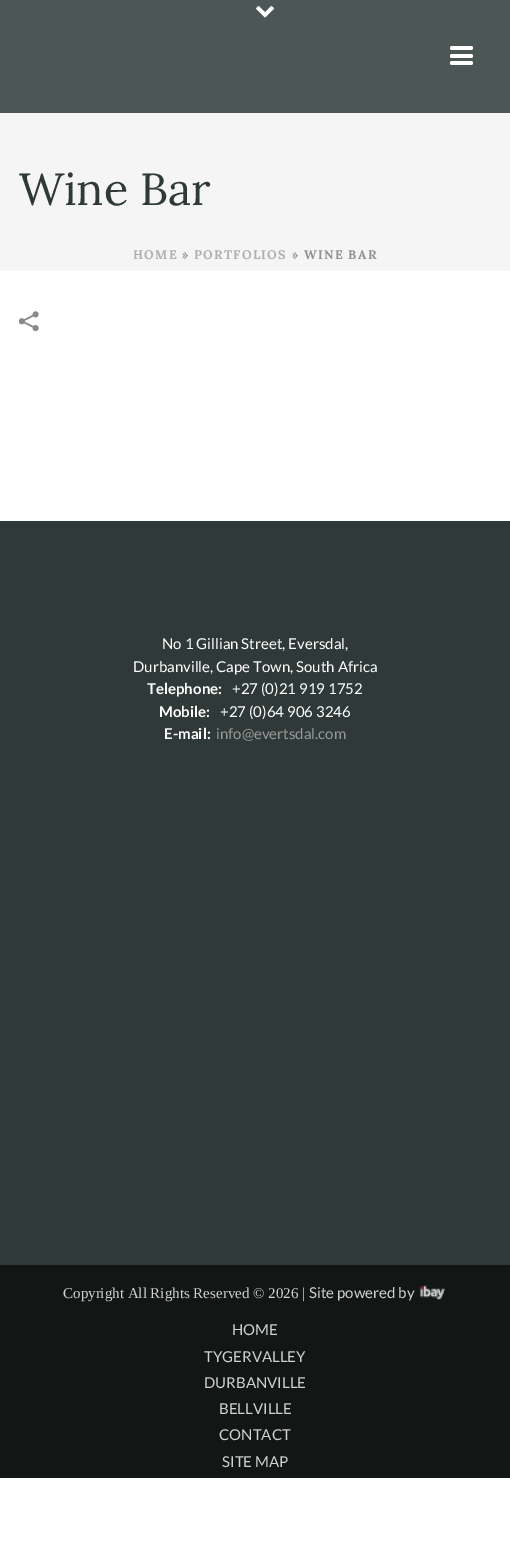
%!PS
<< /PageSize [510 1542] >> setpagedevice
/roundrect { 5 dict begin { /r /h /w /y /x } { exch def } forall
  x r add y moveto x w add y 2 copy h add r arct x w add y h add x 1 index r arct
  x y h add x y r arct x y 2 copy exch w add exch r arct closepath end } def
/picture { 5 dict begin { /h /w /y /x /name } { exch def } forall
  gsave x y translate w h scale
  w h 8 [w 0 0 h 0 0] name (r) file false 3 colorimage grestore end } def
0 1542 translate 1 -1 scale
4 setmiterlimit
1 setgray
0 0 510 1542 rectfill
0.961 setgray
0 113 510 158 rectfill
0.294 0.337 0.333 setrgbcolor
0 0 510 113 rectfill
(img1.rgb) 256 6 18 12 picture
1 setgray
450 46 23 4 2 roundrect fill
450 54 23 4 2 roundrect fill
450 61 23 4 2 roundrect fill
/Lora-Regular [45 0 0 -45 0 0] selectfont
0.18 0.224 0.22 setrgbcolor
19 205 moveto (Wine Bar) show
/Lora-Bold [12.5 0 0 -12.5 0 0] selectfont
0.686 setgray
133 259 moveto 1.25 0 (HOME) ashow
0.569 setgray
182 259 moveto 1.25 0 (») ashow
0.686 setgray
194 259 moveto 1.25 0 (PORTFOLIOS) ashow
0.569 setgray
292 259 moveto 1.25 0 (» WINE BAR) ashow
(img2.rgb) 19 311 20 20 picture
0.18 0.224 0.22 setrgbcolor
0 521 510 744 rectfill
/Lato-Regular [15 0 0 -15 0 0] selectfont
1 setgray
162 649 moveto (No 1 Gillian Street, Eversdal,) show
133 672 moveto (Durbanville, Cape Town, South Africa) show
/Lato-Bold [15 0 0 -15 0 0] selectfont
147 694 moveto (Telephone:) show
/Lato-Regular [15 0 0 -15 0 0] selectfont
232 694 moveto (+27 \(0\)21 919 1752) show
/Lato-Bold [15 0 0 -15 0 0] selectfont
159 717 moveto (Mobile:) show
/Lato-Regular [15 0 0 -15 0 0] selectfont
220 717 moveto (+27 \(0\)64 906 3246) show
/Lato-Bold [15 0 0 -15 0 0] selectfont
164 739 moveto (E-mail:) show
/Lato-Regular [15 0 0 -15 0 0] selectfont
0.6 setgray
216 739 moveto (info@evertsdal.com) show
0.071 0.09 0.086 setrgbcolor
0 1265 510 213 rectfill
/LiberationSerif-Regular [15 0 0 -15 0 0] selectfont
0.816 0.82 0.816 setrgbcolor
63 1298 moveto (Copyright All Rights Reserved © 2026 |) show
/Lato-Regular [15 0 0 -15 0 0] selectfont
309 1298 moveto (Site powered by) show
(img3.rgb) 419 1285 27 15 picture
232 1335 moveto (HOME) show
204 1362 moveto (TYGERVALLEY) show
204 1388 moveto (DURBANVILLE) show
219 1414 moveto (BELLVILLE) show
219 1440 moveto (CONTACT) show
222 1467 moveto (SITE MAP) show
showpage
